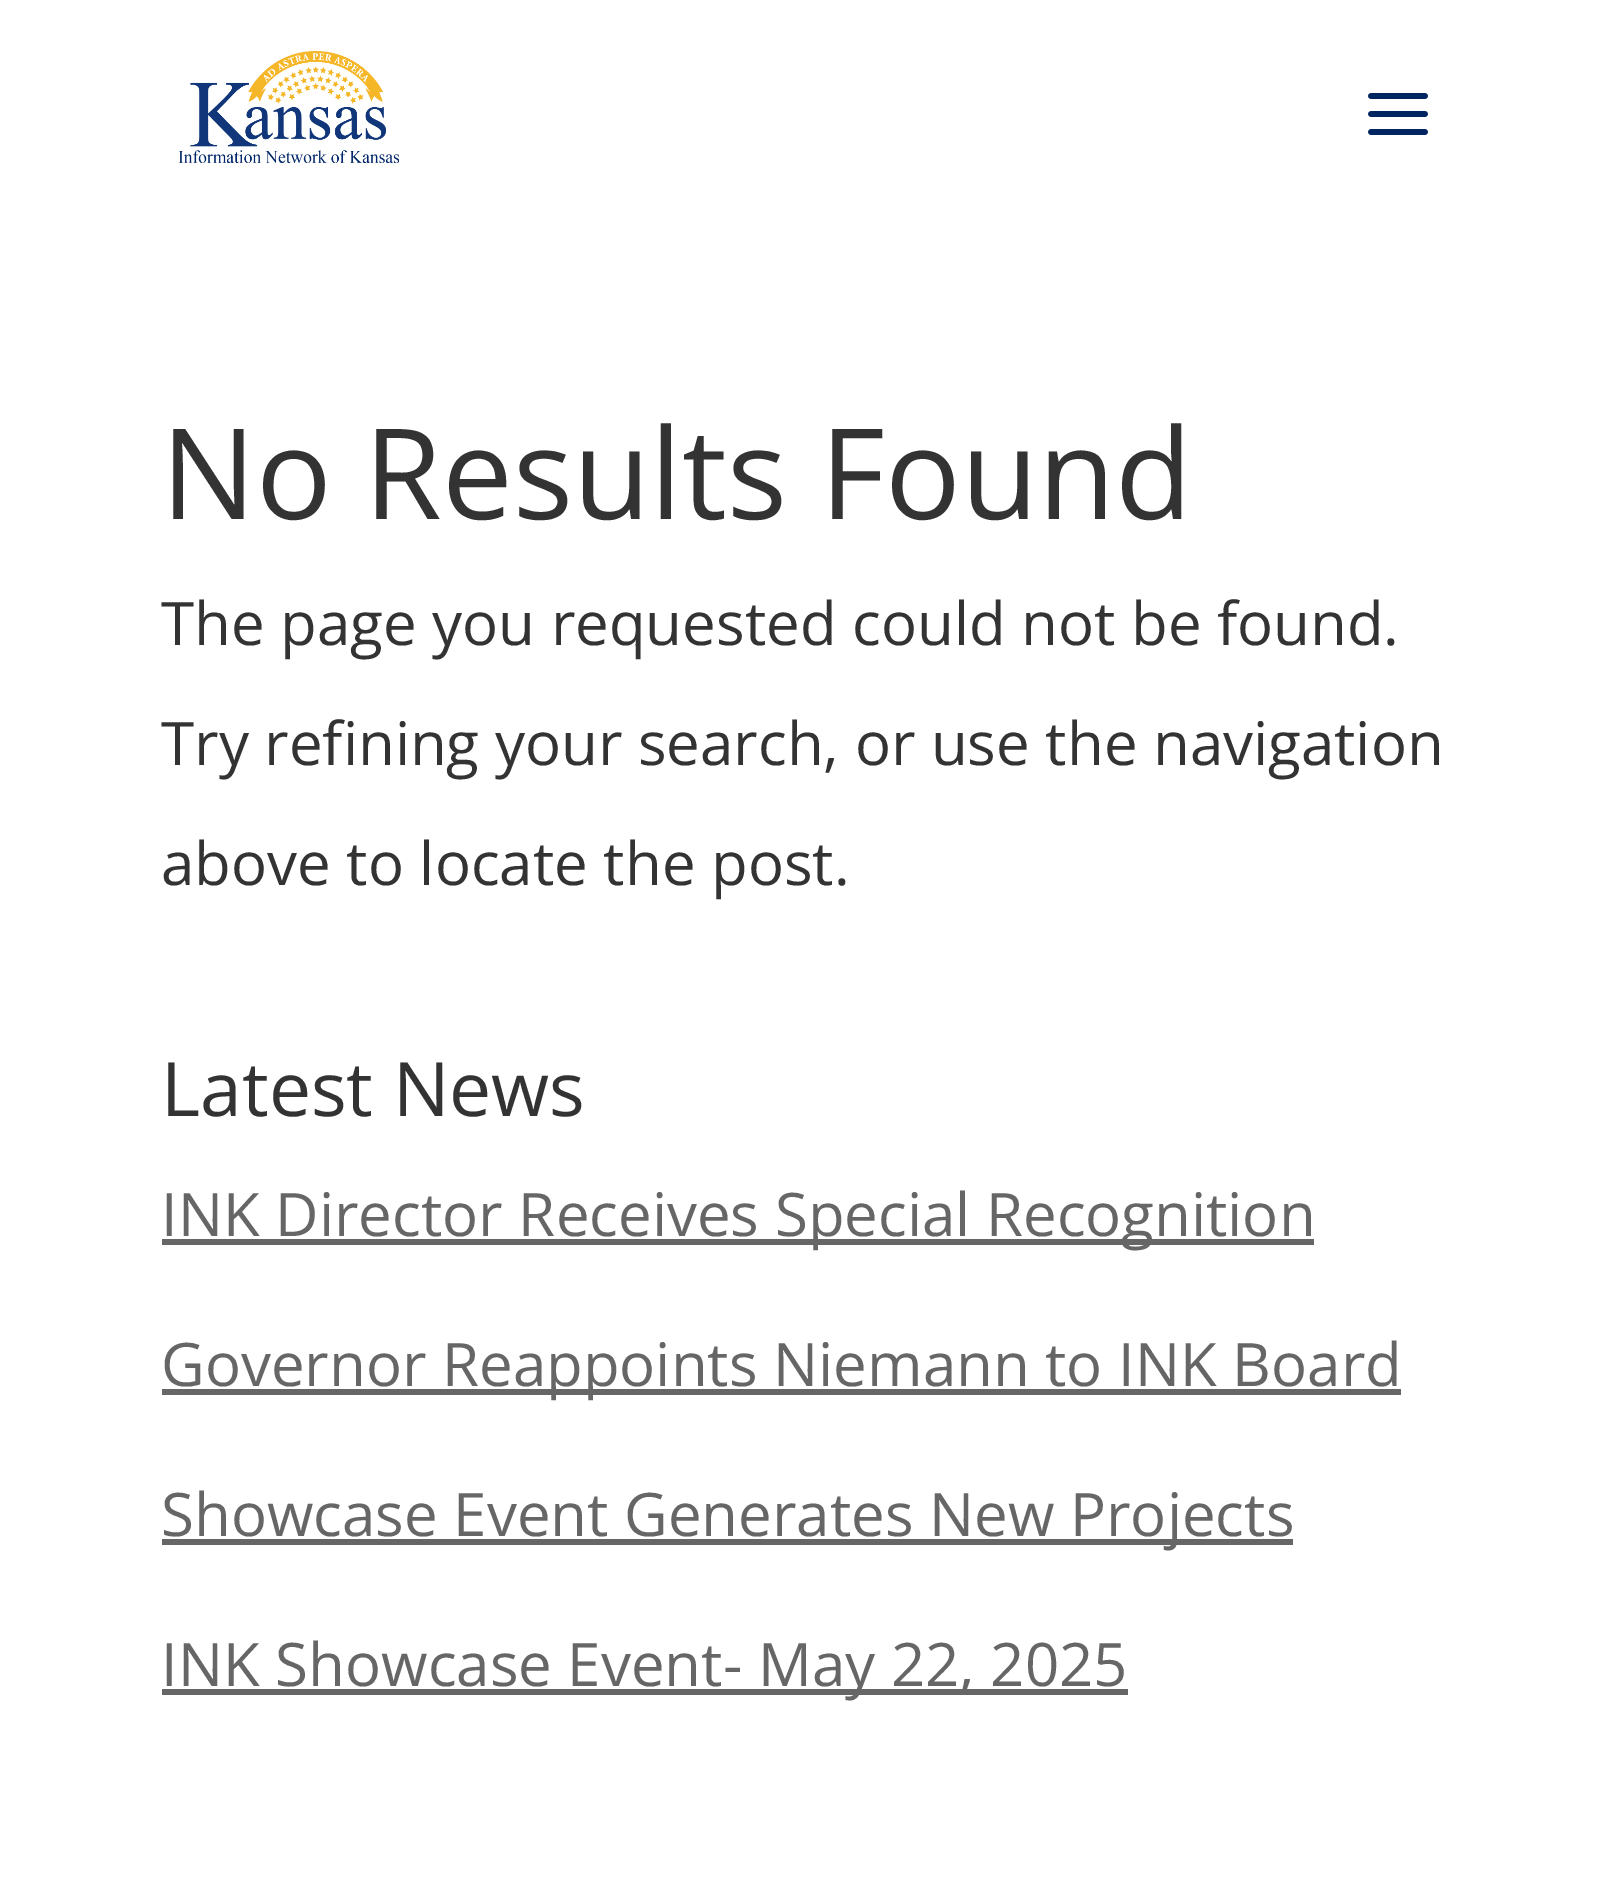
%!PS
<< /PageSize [1604 1897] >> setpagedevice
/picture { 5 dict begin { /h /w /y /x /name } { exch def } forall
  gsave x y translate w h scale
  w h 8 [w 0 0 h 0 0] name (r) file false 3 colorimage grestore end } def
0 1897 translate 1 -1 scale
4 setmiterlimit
1 setgray
0 0 1604 1897 rectfill
(img1.rgb) 178 51 221 112 picture
(img2.rgb) 1368 93 60 42 picture
/OpenSans-Regular [126 0 0 -126 0 0] selectfont
0.2 setgray
161 519 moveto (No Results Found) show
/OpenSans-Regular [60 0 0 -60 0 0] selectfont
161 645 moveto (The page you requested could not be found.) show
161 765 moveto (Try refining your search, or use the navigation) show
161 885 moveto (above to locate the post.) show
/OpenSans-Regular [75 0 0 -75 0 0] selectfont
161 1116 moveto (Latest News) show
0.4 setgray
162 1239 1152 6 rectfill
/OpenSans-Regular [60 0 0 -60 0 0] selectfont
161 1236 moveto (INK Director Receives Special Recognition) show
162 1389 1239 6 rectfill
161 1386 moveto (Governor Reappoints Niemann to INK Board) show
162 1539 1131 6 rectfill
161 1536 moveto (Showcase Event Generates New Projects) show
162 1689 966 6 rectfill
161 1686 moveto (INK Showcase Event- May 22, 2025) show
showpage
